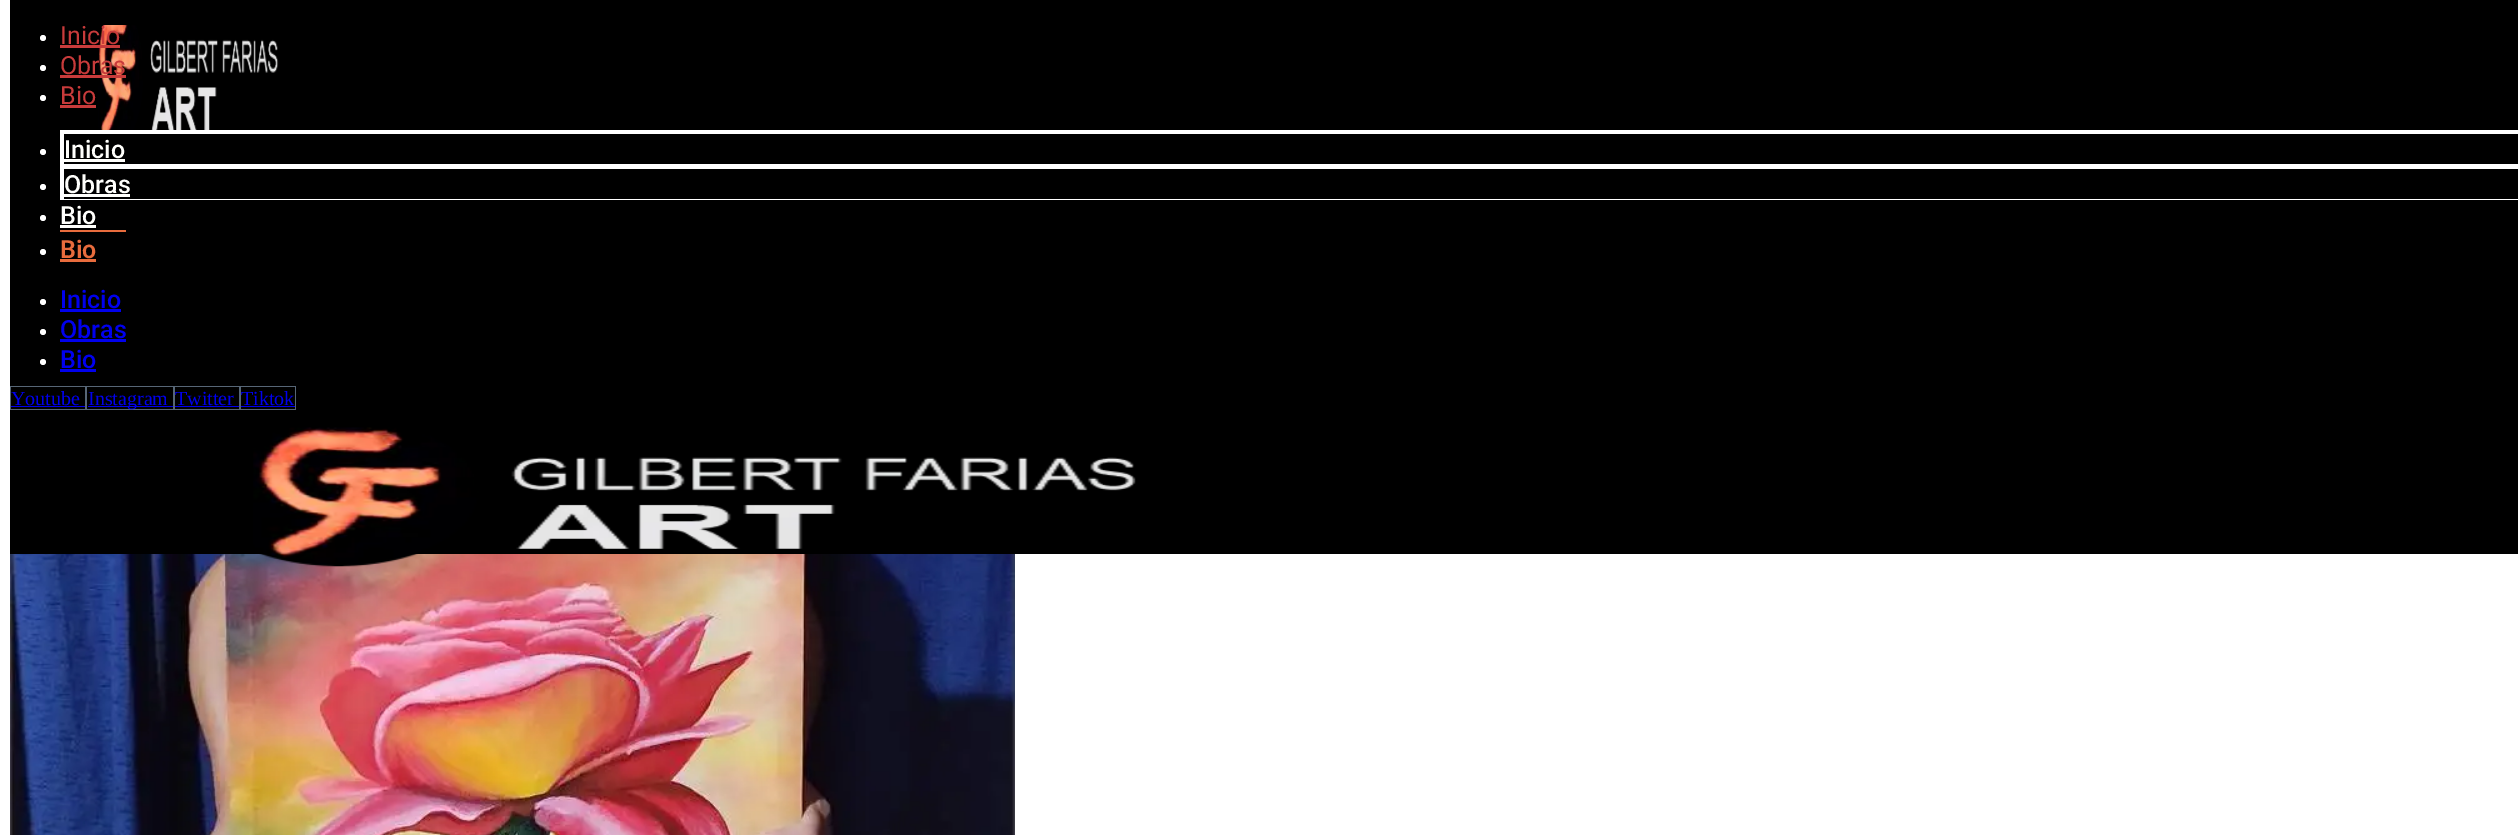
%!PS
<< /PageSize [2518 835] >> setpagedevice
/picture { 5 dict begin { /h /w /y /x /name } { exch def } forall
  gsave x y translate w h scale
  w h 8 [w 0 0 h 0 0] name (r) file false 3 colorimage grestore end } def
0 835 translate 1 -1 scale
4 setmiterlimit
1 setgray
0 0 2518 835 rectfill
0 setgray
10 0 2508 554 rectfill
1 setgray
newpath 43 38 3 0 360 arc closepath fill
(img2.rgb) 98 25 181 105 picture
/Roboto-Regular [25 0 0 -25 0 0] selectfont
0.784 0.231 0.231 setrgbcolor
60 44 moveto (Inicio) show
60 45 60 3 rectfill
1 setgray
newpath 43 68 3 0 360 arc closepath fill
0.784 0.231 0.231 setrgbcolor
60 74 moveto (Obras) show
60 75 66 3 rectfill
1 setgray
newpath 43 98 3 0 360 arc closepath fill
0.784 0.231 0.231 setrgbcolor
60 104 moveto (Bio) show
60 105 36 3 rectfill
1 setgray
60 130 2458 4 rectfill
60 164 2458 5 rectfill
60 130 4 35 rectfill
newpath 43 152 3 0 360 arc closepath fill
/Roboto-Medium [25 0 0 -25 0 0] selectfont
1 1 0.988 setrgbcolor
64 158 moveto (Inicio) show
64 159 61 3 rectfill
1 setgray
60 199 2458 1 rectfill
60 165 4 35 rectfill
newpath 43 187 3 0 360 arc closepath fill
1 1 0.988 setrgbcolor
64 193 moveto (Obras) show
64 194 66 3 rectfill
1 setgray
newpath 43 218 3 0 360 arc closepath fill
1 1 0.988 setrgbcolor
60 224 moveto (Bio) show
60 225 36 3 rectfill
(img3.rgb) 10 554 1005 281 picture
(img1.rgb) 253 427 883 140 picture
0.91 0.424 0.239 setrgbcolor
60 230 66 2 rectfill
1 setgray
newpath 43 252 3 0 360 arc closepath fill
/Roboto-SemiBold [25 0 0 -25 0 0] selectfont
0.91 0.424 0.239 setrgbcolor
60 258 moveto (Bio) show
60 259 36 3 rectfill
1 setgray
newpath 43 302 3 0 360 arc closepath fill
/Roboto-Medium [25 0 0 -25 0 0] selectfont
0 0 0.933 setrgbcolor
60 308 moveto (Inicio) show
60 309 61 3 rectfill
1 setgray
newpath 43 332 3 0 360 arc closepath fill
0 0 0.933 setrgbcolor
60 338 moveto (Obras) show
60 339 66 3 rectfill
1 setgray
newpath 43 362 3 0 360 arc closepath fill
0 0 0.933 setrgbcolor
60 368 moveto (Bio) show
60 369 36 3 rectfill
/LiberationSerif-Regular [20 0 0 -20 0 0] selectfont
11 405 moveto (Youtube) show
0.341 0.4 0.463 setrgbcolor
10 386 75 1 rectfill
10 409 75 1 rectfill
10 386 1 24 rectfill
85 386 1 24 rectfill
0 0 0.933 setrgbcolor
11 406 74 1 rectfill
0.341 0.4 0.463 setrgbcolor
86 409 87 1 rectfill
0 0 0.933 setrgbcolor
88 406 85 1 rectfill
88 405 moveto (Instagram) show
0.341 0.4 0.463 setrgbcolor
86 386 87 1 rectfill
86 386 1 24 rectfill
173 386 1 24 rectfill
0 0 0.933 setrgbcolor
175 405 moveto (Twitter) show
0.341 0.4 0.463 setrgbcolor
174 386 65 1 rectfill
174 409 65 1 rectfill
174 386 1 24 rectfill
239 386 1 24 rectfill
0 0 0.933 setrgbcolor
175 406 64 1 rectfill
241 405 moveto (Tiktok) show
0.341 0.4 0.463 setrgbcolor
240 386 55 1 rectfill
240 409 55 1 rectfill
240 386 1 24 rectfill
295 386 1 24 rectfill
0 0 0.933 setrgbcolor
241 406 54 1 rectfill
showpage
